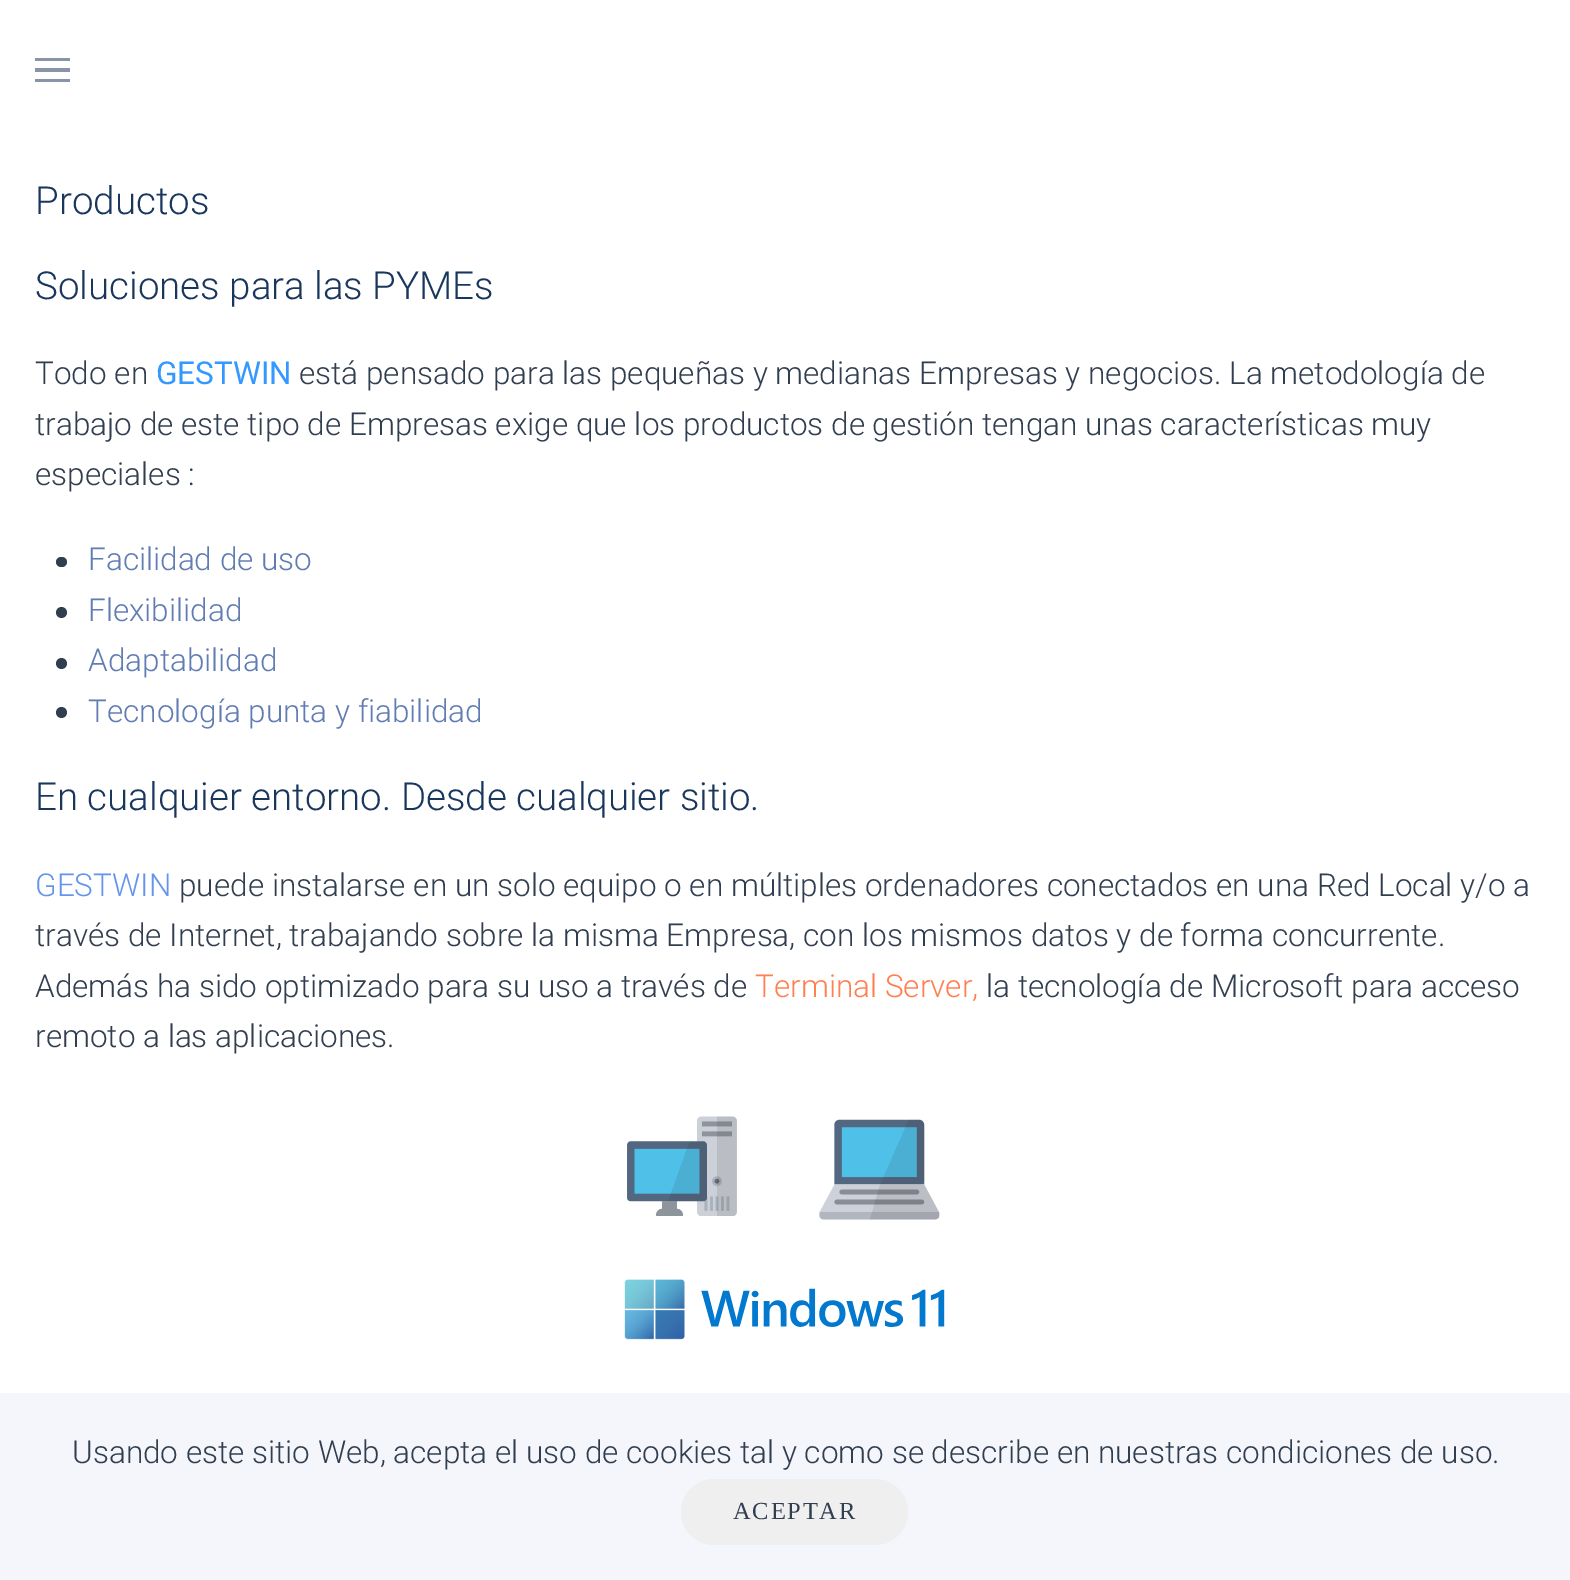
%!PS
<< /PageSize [1570 1580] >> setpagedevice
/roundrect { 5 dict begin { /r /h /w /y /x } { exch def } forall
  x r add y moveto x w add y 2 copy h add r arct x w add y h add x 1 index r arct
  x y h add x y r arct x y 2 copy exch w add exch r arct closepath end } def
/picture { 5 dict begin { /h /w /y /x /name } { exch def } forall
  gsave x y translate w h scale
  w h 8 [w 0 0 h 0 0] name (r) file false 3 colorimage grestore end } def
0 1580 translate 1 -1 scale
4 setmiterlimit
1 setgray
0 0 1570 1580 rectfill
0.541 0.58 0.659 setrgbcolor
35 58 35 3 rectfill
35 68 35 4 rectfill
35 79 35 3 rectfill
/Roboto-Light [38.5 0 0 -38.5 0 0] selectfont
0.098 0.212 0.365 setrgbcolor
35 214 moveto (Productos) show
35 299 moveto (Soluciones para las PYMEs) show
/Roboto-Light [31.5 0 0 -31.5 0 0] selectfont
0.192 0.243 0.31 setrgbcolor
35 384 moveto (Todo en) show
/Roboto-Regular [31.5 0 0 -31.5 0 0] selectfont
0.2 0.6 1 setrgbcolor
156 384 moveto (GESTWIN) show
/Roboto-Light [31.5 0 0 -31.5 0 0] selectfont
0.192 0.243 0.31 setrgbcolor
299 384 moveto (está pensado para las pequeñas y medianas Empresas y negocios. La metodología de) show
35 435 moveto (trabajo de este tipo de Empresas exige que los productos de gestión tengan unas características muy) show
35 485 moveto (especiales :) show
56 557 11 10 5 roundrect fill
0.376 0.486 0.702 setrgbcolor
88 570 moveto (Facilidad de uso) show
0.192 0.243 0.31 setrgbcolor
newpath 61.5 612.5 5.5 0 360 arc closepath fill
0.376 0.486 0.702 setrgbcolor
88 621 moveto (Flexibilidad) show
0.192 0.243 0.31 setrgbcolor
newpath 61.5 663.5 5.5 0 360 arc closepath fill
0.376 0.486 0.702 setrgbcolor
88 671 moveto (Adaptabilidad) show
0.192 0.243 0.31 setrgbcolor
newpath 61.5 712.5 5.5 0 360 arc closepath fill
0.376 0.486 0.702 setrgbcolor
88 722 moveto (Tecnología punta y fiabilidad) show
/Roboto-Light [38.5 0 0 -38.5 0 0] selectfont
0.098 0.212 0.365 setrgbcolor
35 810 moveto (En cualquier entorno. Desde cualquier sitio.) show
/Roboto-Light [31.5 0 0 -31.5 0 0] selectfont
0.392 0.584 0.929 setrgbcolor
35 896 moveto (GESTWIN) show
0.192 0.243 0.31 setrgbcolor
179 896 moveto (puede instalarse en un solo equipo o en múltiples ordenadores conectados en una Red Local y/o a) show
35 946 moveto (través de Internet, trabajando sobre la misma Empresa, con los mismos datos y de forma concurrente.) show
35 997 moveto (Además ha sido optimizado para su uso a través de) show
1 0.498 0.314 setrgbcolor
755 997 moveto (Terminal Server,) show
0.192 0.243 0.31 setrgbcolor
986 997 moveto (la tecnología de Microsoft para acceso) show
35 1047 moveto (remoto a las aplicaciones.) show
(img1.rgb) 624 1116 321 224 picture
0.957 0.965 0.984 setrgbcolor
0 1393 1570 187 rectfill
0.192 0.243 0.31 setrgbcolor
72 1463 moveto (Usando este sitio Web, acepta el uso de cookies tal y como se describe en nuestras condiciones de uso.) show
0.937 setgray
681 1479 227 66 33 roundrect fill
/LiberationSerif-Regular [24.5 0 0 -24.5 0 0] selectfont
0.192 0.243 0.31 setrgbcolor
733 1519 moveto 1.75 0 (ACEPTAR) ashow
showpage
